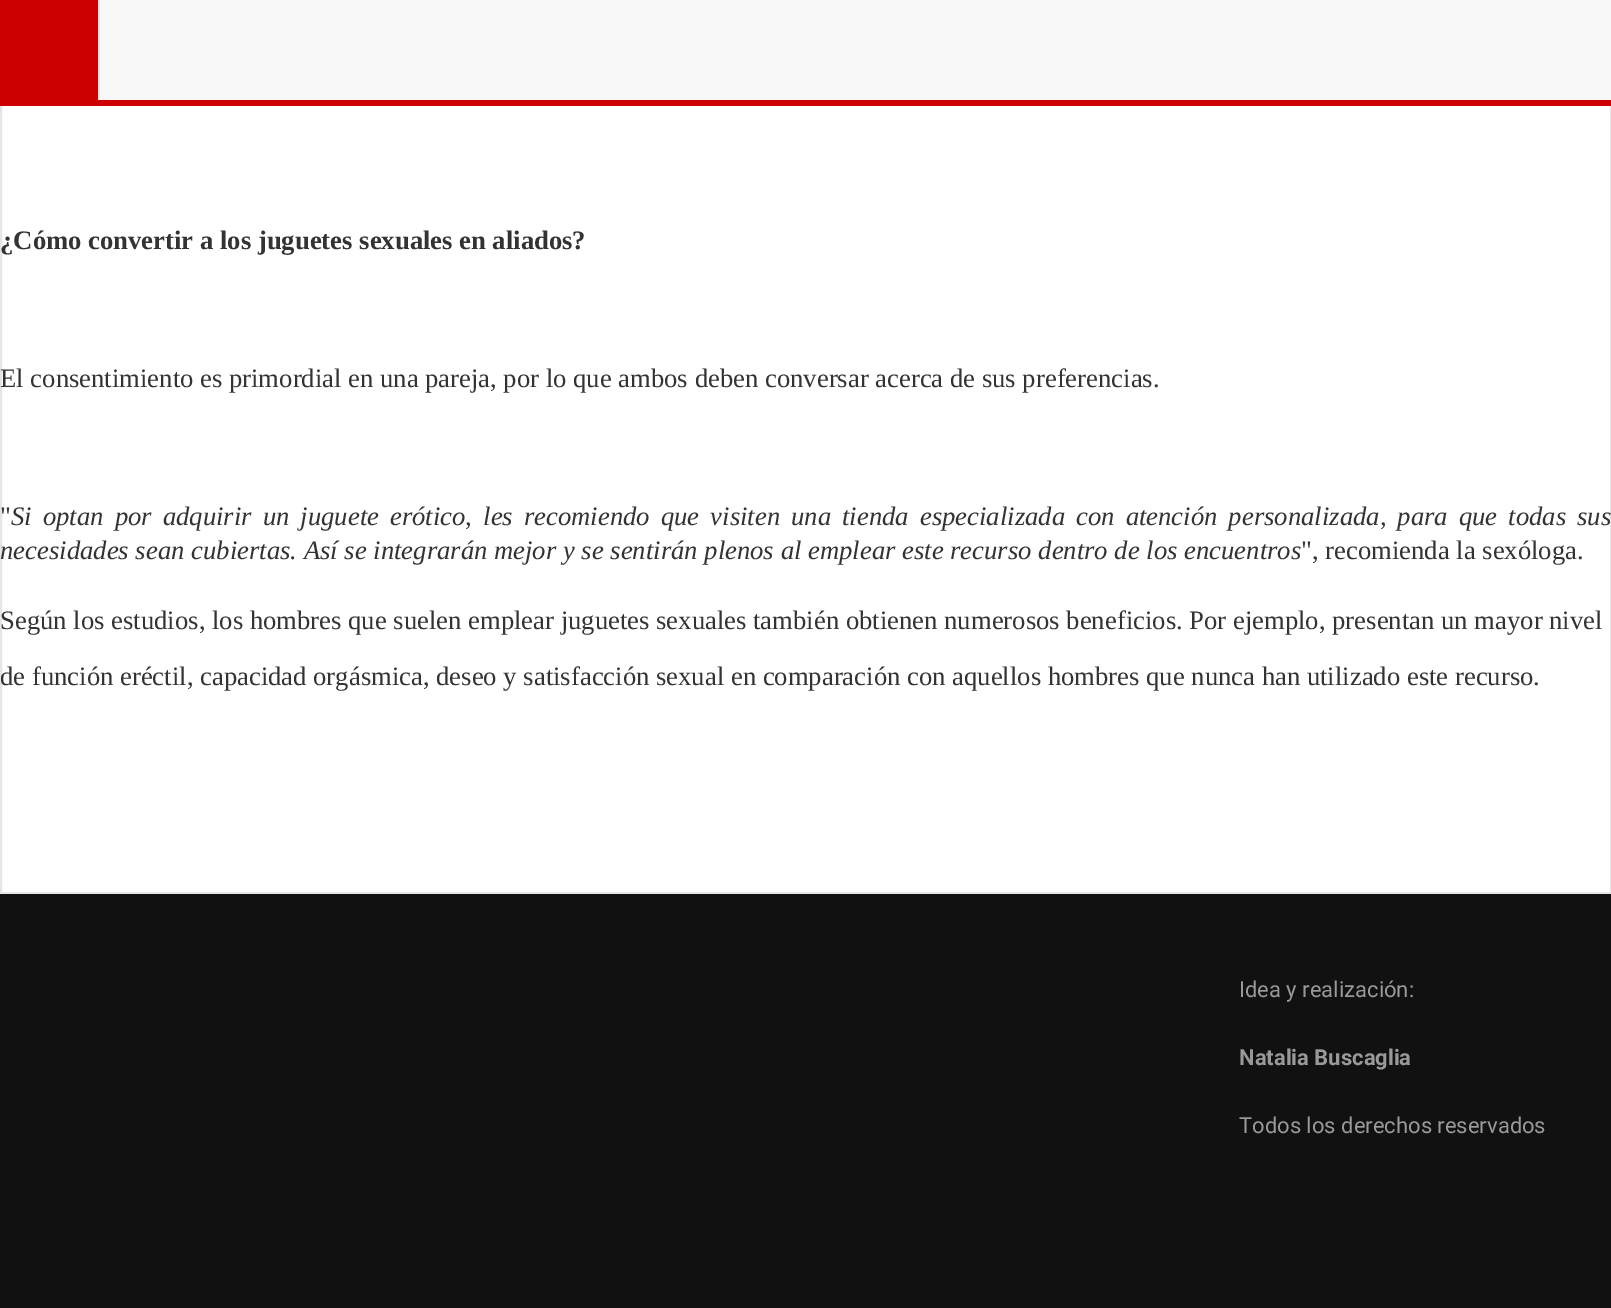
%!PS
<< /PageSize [1611 1308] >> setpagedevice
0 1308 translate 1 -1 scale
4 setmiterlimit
1 setgray
0 0 1611 1308 rectfill
0.898 setgray
2 setlinewidth
1 -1 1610 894 rectstroke
0.973 setgray
100 0 1511 100 rectfill
0.8 0 0 setrgbcolor
0 100 1611 6 rectfill
0 0 98 100 rectfill
0.898 setgray
98 0 2 100 rectfill
/LiberationSerif-Bold [26.67 0 0 -26.67 0 0] selectfont
0.2 setgray
0 249 moveto (¿Cómo convertir a los juguetes sexuales en aliados?) show
/LiberationSerif-Regular [26.67 0 0 -26.67 0 0] selectfont
0 387 moveto (El consentimiento es primordial en una pareja, por lo que ambos deben conversar acerca de sus preferencias.) show
0 525 moveto (") show
/LiberationSerif-Italic [26.67 0 0 -26.67 0 0] selectfont
11 525 moveto 4.4 0 32 (Si optan por adquirir un juguete erótico, les recomiendo que visiten una tienda especializada con atención personalizada, para que todas sus) widthshow
0 559 moveto (necesidades sean cubiertas. Así se integrarán mejor y se sentirán plenos al emplear este recurso dentro de los encuentros) show
/LiberationSerif-Regular [26.67 0 0 -26.67 0 0] selectfont
1301 559 moveto (", recomienda la sexóloga.) show
0 629 moveto (Según los estudios, los hombres que suelen emplear juguetes sexuales también obtienen numerosos beneficios. Por ejemplo, presentan un mayor nivel) show
0 685 moveto (de función eréctil, capacidad orgásmica, deseo y satisfacción sexual en comparación con aquellos hombres que nunca han utilizado este recurso.) show
0.067 setgray
0 894 1611 414 rectfill
/Roboto-Regular [22 0 0 -22 0 0] selectfont
0.6 setgray
1239 997 moveto (Idea y realización:) show
/Roboto-Bold [22 0 0 -22 0 0] selectfont
1239 1065 moveto (Natalia Buscaglia) show
/Roboto-Regular [22 0 0 -22 0 0] selectfont
1239 1133 moveto (Todos los derechos reservados) show
showpage
